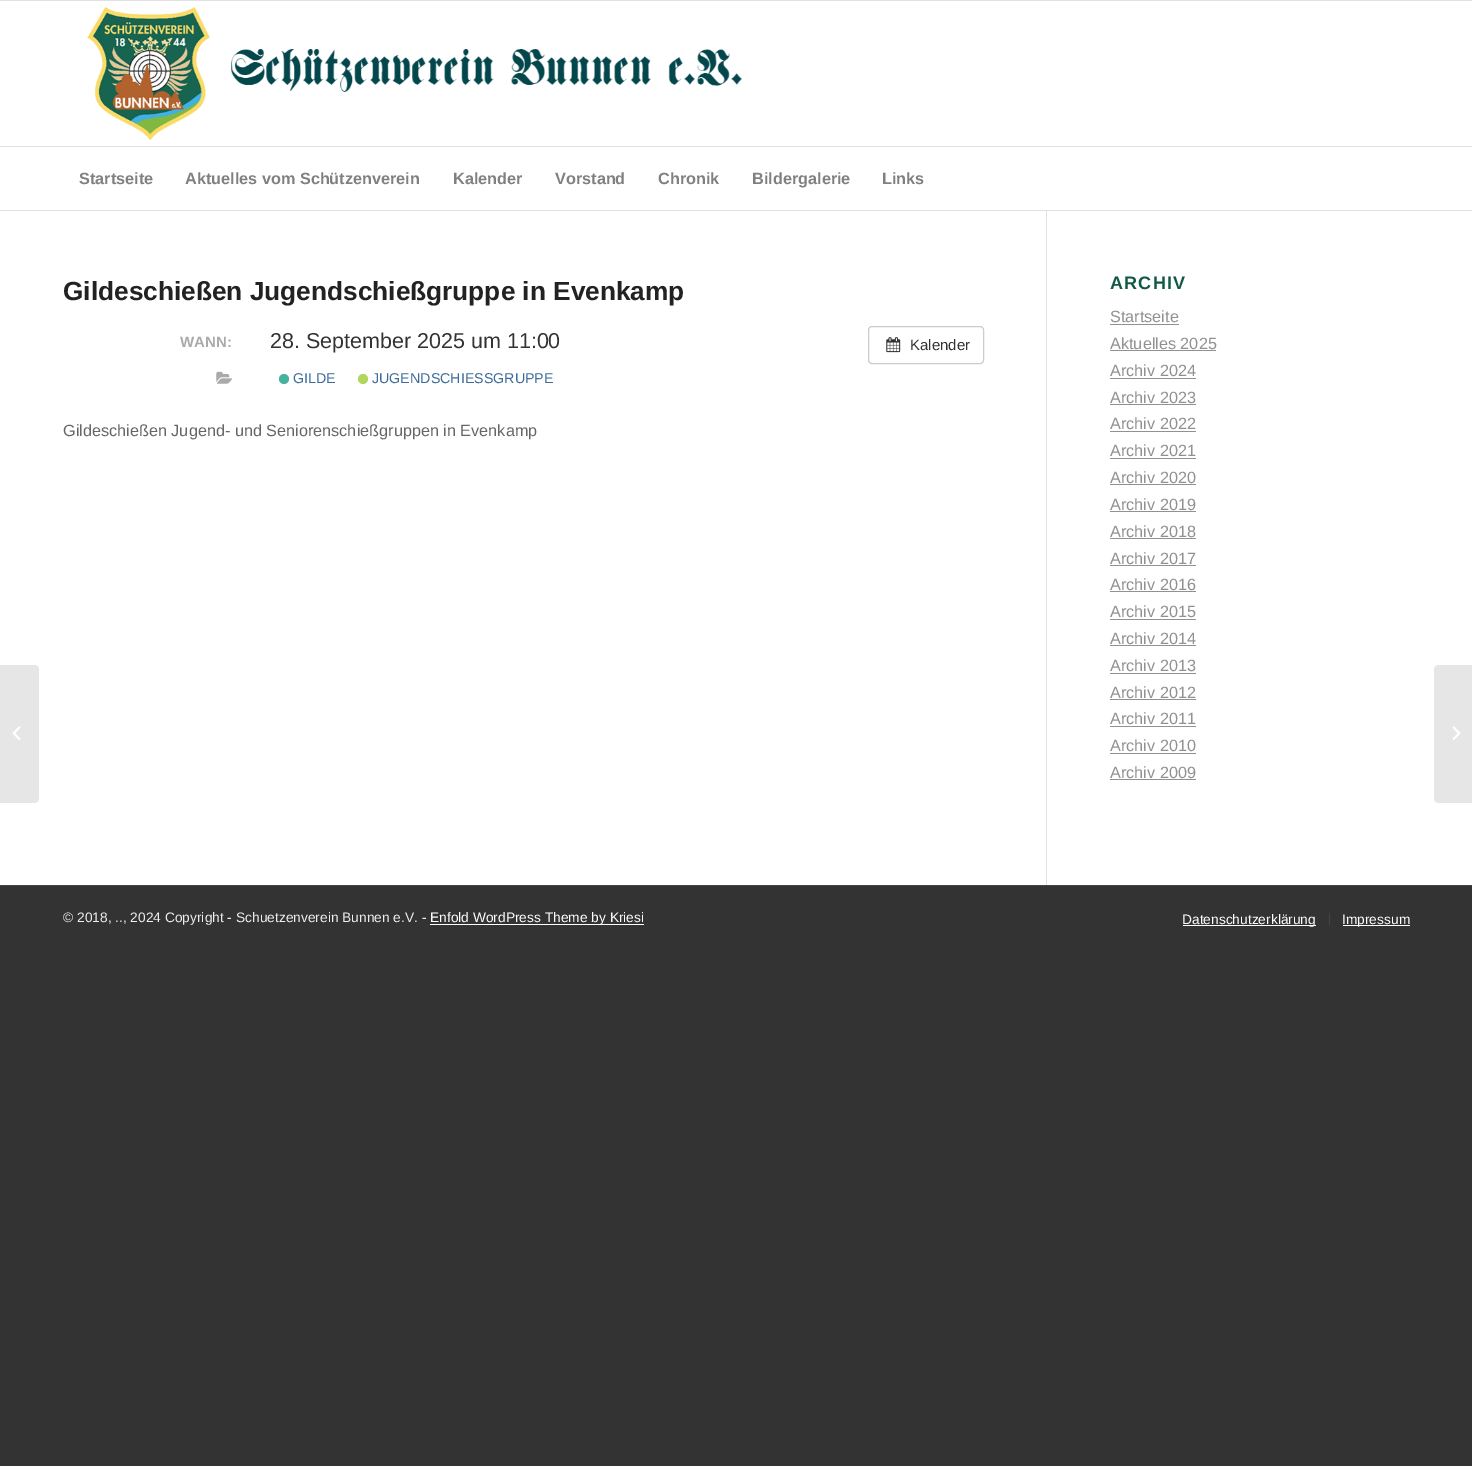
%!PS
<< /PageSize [1472 1466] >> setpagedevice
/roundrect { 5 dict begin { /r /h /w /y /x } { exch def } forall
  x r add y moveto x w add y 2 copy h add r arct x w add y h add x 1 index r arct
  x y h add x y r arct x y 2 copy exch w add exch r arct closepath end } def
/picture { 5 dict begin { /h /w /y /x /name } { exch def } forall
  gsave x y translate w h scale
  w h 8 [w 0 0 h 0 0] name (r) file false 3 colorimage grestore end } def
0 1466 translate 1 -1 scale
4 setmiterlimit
0.2 setgray
0 0 1472 1466 rectfill
1 setgray
0 211 1472 674 rectfill
0 1 1472 209 rectfill
0.882 setgray
0 0 1472 1 rectfill
0 210 1472 1 rectfill
(img1.rgb) 87 7 655 133 picture
0 146 1472 1 rectfill
/LiberationSans-Bold [16.25 0 0 -16.25 0 0] selectfont
0.502 setgray
79 184 moveto (Startseite) show
185 184 moveto (Aktuelles vom Schützenverein) show
453 184 moveto (Kalender) show
555 184 moveto (Vorstand) show
658 184 moveto (Chronik) show
752 184 moveto (Bildergalerie) show
882 184 moveto (Links) show
0.902 setgray
newpath 0 665 moveto 34 665 lineto 37 665 39 667 39 670 curveto 39 798 lineto 39 801 37 803 34 803 curveto 0 803 lineto closepath fill
(img2.rgb) 12 726 9 14 picture
/LiberationSans-Bold [26.25 0 0 -26.25 0 0] selectfont
0.133 setgray
63 300 moveto (Gildeschießen Jugendschießgruppe in Evenkamp) show
/LiberationSans-Bold [15 0 0 -15 0 0] selectfont
0.667 setgray
180 347 moveto (WANN:) show
/LiberationSans-Regular [21.5 0 0 -21.5 0 0] selectfont
0.2 setgray
270 348 moveto (28. September 2025 um 11:00) show
(img3.rgb) 216 371 17 13 picture
0.271 0.702 0.616 setrgbcolor
newpath 284 379 5 0 360 arc closepath fill
/LiberationSans-Regular [14.25 0 0 -14.25 0 0] selectfont
0.239 0.42 0.6 setrgbcolor
293 383 moveto (GILDE) show
0.698 0.835 0.361 setrgbcolor
newpath 363 379 5 0 360 arc closepath fill
0.239 0.42 0.6 setrgbcolor
372 383 moveto (JUGENDSCHIESSGRUPPE) show
0.8 setgray
868.5 326.5 115 37 3.5 roundrect stroke
(img4.rgb) 886 337 15 16 picture
/LiberationSans-Regular [15 0 0 -15 0 0] selectfont
0.2 setgray
910 350 moveto (Kalender) show
/LiberationSans-Regular [16.25 0 0 -16.25 0 0] selectfont
0.4 setgray
63 436 moveto (Gildeschießen Jugend- und Seniorenschießgruppen in Evenkamp) show
0.882 setgray
1046 211 1 675 rectfill
/LiberationSans-Bold [18 0 0 -18 0 0] selectfont
0.067 0.349 0.271 setrgbcolor
1110 289 moveto 1.25 0 (ARCHIV) ashow
/LiberationSans-Regular [16.25 0 0 -16.25 0 0] selectfont
0.569 setgray
1110 322 moveto (Startseite) show
1110 324 69 1 rectfill
1110 349 moveto (Aktuelles 2025) show
1110 350 106 1 rectfill
1110 376 moveto (Archiv 2024) show
1110 378 86 1 rectfill
1110 403 moveto (Archiv 2023) show
1110 404 86 1 rectfill
1110 429 moveto (Archiv 2022) show
1110 431 86 1 rectfill
1110 456 moveto (Archiv 2021) show
1110 458 86 1 rectfill
1110 483 moveto (Archiv 2020) show
1110 484 86 1 rectfill
1110 510 moveto (Archiv 2019) show
1110 511 86 1 rectfill
1110 537 moveto (Archiv 2018) show
1110 538 86 1 rectfill
1110 564 moveto (Archiv 2017) show
1110 565 86 1 rectfill
1110 590 moveto (Archiv 2016) show
1110 591 86 1 rectfill
1110 617 moveto (Archiv 2015) show
1110 619 86 1 rectfill
1110 644 moveto (Archiv 2014) show
1110 645 86 1 rectfill
1110 671 moveto (Archiv 2013) show
1110 673 86 1 rectfill
1110 698 moveto (Archiv 2012) show
1110 699 86 1 rectfill
1110 724 moveto (Archiv 2011) show
1110 726 86 1 rectfill
1110 751 moveto (Archiv 2010) show
1110 753 86 1 rectfill
1110 778 moveto (Archiv 2009) show
1110 779 86 1 rectfill
0.267 setgray
0 885 1472 1 rectfill
/LiberationSans-Regular [13.75 0 0 -13.75 0 0] selectfont
0.933 setgray
63 922 moveto (© 2018, .., 2024 Copyright - Schuetzenverein Bunnen e.V. -) show
1 setgray
430 924 214 1 rectfill
430 922 moveto (Enfold WordPress Theme by Kriesi) show
1183 925 133 1 rectfill
1182 924 moveto (Datenschutzerklärung) show
0.267 setgray
1329 913 1 12 rectfill
1 setgray
1343 925 67 1 rectfill
1342 924 moveto (Impressum) show
0.902 setgray
newpath 1439 665 moveto 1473 665 lineto 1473 803 lineto 1439 803 lineto 1436 803 1434 801 1434 798 curveto 1434 670 lineto 1434 667 1436 665 1439 665 curveto closepath fill
(img5.rgb) 1452 726 9 14 picture
showpage
